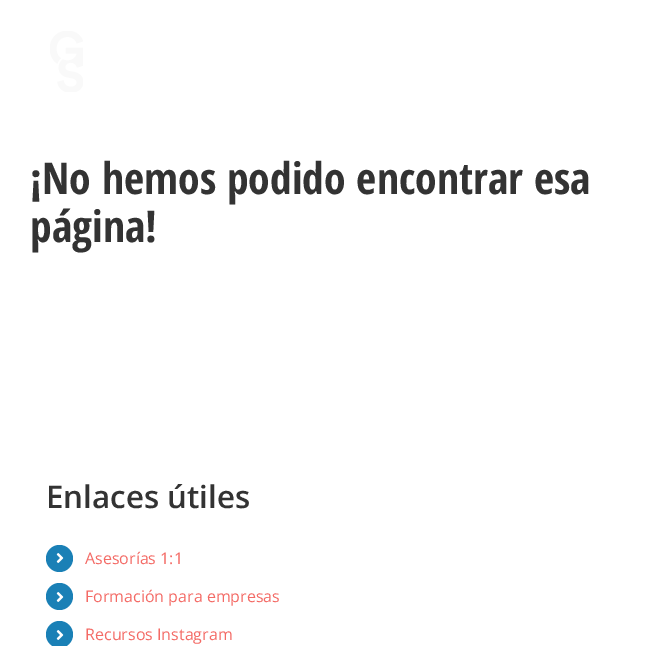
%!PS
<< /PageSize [655 646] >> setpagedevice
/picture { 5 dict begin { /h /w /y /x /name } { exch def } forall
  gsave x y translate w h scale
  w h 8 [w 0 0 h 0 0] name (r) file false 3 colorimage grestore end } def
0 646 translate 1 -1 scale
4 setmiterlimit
1 setgray
0 0 655 646 rectfill
(img1.rgb) 50 31 33 61 picture
/OpenSansCondensed-Bold [43.75 0 0 -43.75 0 0] selectfont
0.2 setgray
30 194 moveto (¡No hemos podido encontrar esa) show
30 242 moveto (página!) show
/OpenSans-SemiBold [31.25 0 0 -31.25 0 0] selectfont
46 508 moveto (Enlaces útiles) show
0.102 0.502 0.714 setrgbcolor
newpath 59.5 558.5 13.5 0 360 arc closepath fill
(img2.rgb) 56 553 8 10 picture
/OpenSans-Regular [16 0 0 -16 0 0] selectfont
0.957 0.416 0.396 setrgbcolor
85 564 moveto (Asesorías 1:1) show
0.102 0.502 0.714 setrgbcolor
newpath 59.5 596.5 13.5 0 360 arc closepath fill
(img2.rgb) 56 592 8 10 picture
0.957 0.416 0.396 setrgbcolor
85 602 moveto (Formación para empresas) show
0.102 0.502 0.714 setrgbcolor
newpath 59.5 634.5 13.5 0 360 arc closepath fill
(img2.rgb) 56 630 8 10 picture
0.957 0.416 0.396 setrgbcolor
85 640 moveto (Recursos Instagram) show
showpage
